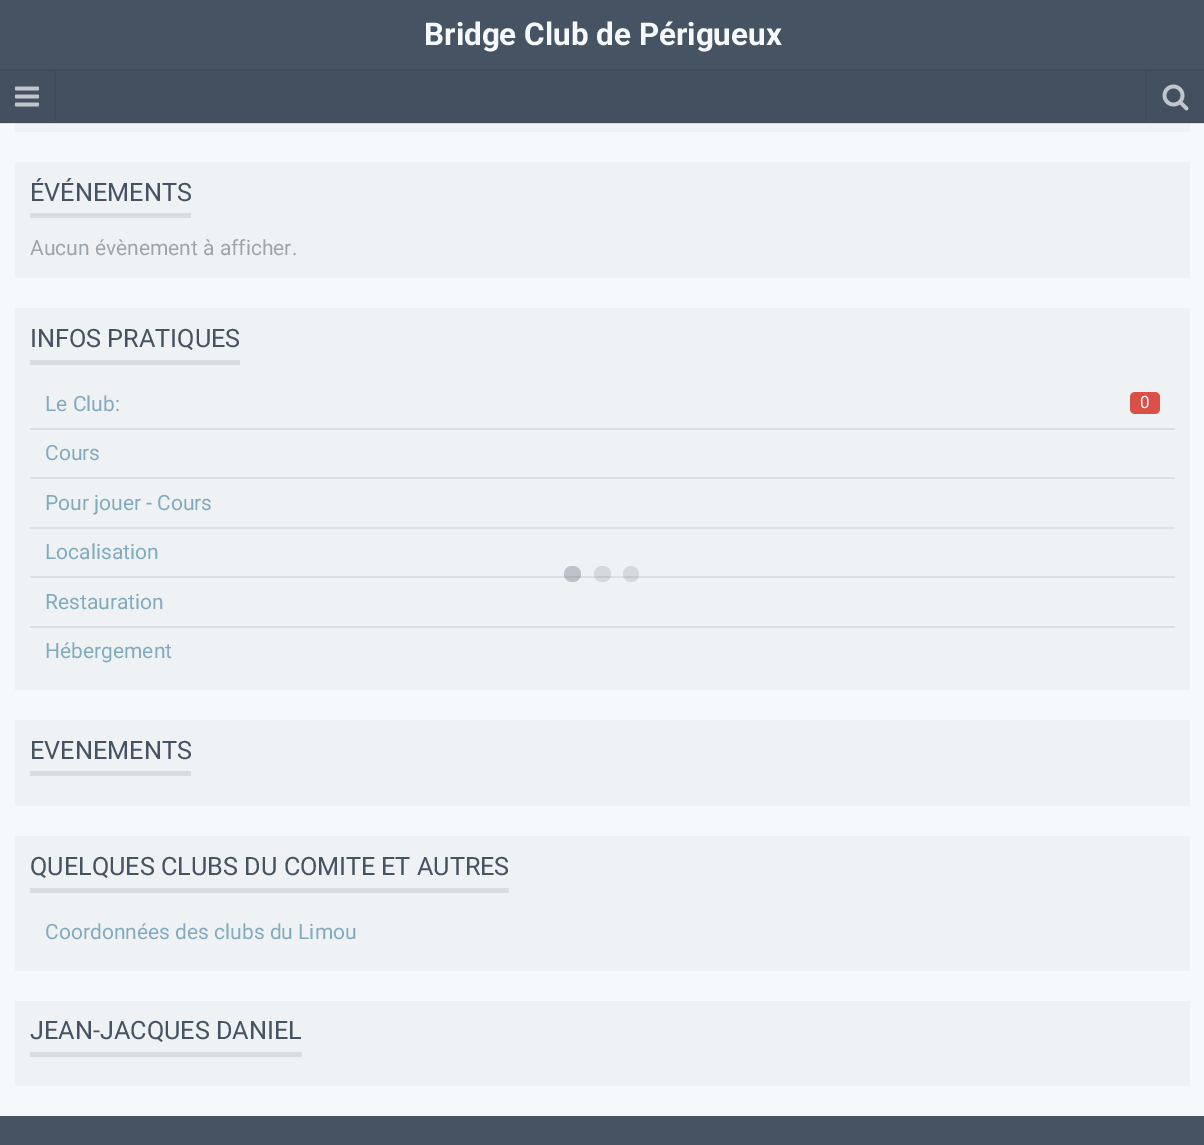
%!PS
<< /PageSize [1204 1145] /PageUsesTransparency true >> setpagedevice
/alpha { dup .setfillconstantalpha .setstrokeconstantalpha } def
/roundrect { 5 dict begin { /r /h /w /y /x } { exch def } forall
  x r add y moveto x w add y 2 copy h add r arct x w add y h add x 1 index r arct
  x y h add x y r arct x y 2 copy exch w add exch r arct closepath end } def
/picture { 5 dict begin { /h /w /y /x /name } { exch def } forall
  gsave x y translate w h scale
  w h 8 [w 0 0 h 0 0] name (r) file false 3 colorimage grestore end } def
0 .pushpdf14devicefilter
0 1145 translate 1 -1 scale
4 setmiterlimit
0.965 0.976 0.984 setrgbcolor
0 0 1204 1145 rectfill
0.878 0.89 0.898 setrgbcolor
0 123 1204 1 rectfill
0.275 0.325 0.384 setrgbcolor
0 0 1204 69 rectfill
/Roboto-Bold [31.4 0 0 -31.4 0 0] selectfont
0.965 0.976 0.984 setrgbcolor
424 45 moveto (Bridge Club de Périgueux) show
0.267 0.314 0.373 setrgbcolor
0 71 1204 51 rectfill
0.251 0.294 0.349 setrgbcolor
0 122 1204 1 rectfill
0 69 1204 2 rectfill
0.1 alpha
0.106 0.118 0.122 setrgbcolor
newpath 56 70 moveto 56 122 lineto 54 120 lineto 54 72 lineto closepath fill
1 alpha
(img1.rgb) 15 86 24 21 picture
0.251 0.294 0.349 setrgbcolor
1145 71 2 51 rectfill
(img2.rgb) 1162 84 27 27 picture
0.937 0.949 0.957 setrgbcolor
15 124 1175 8 rectfill
0.855 0.867 0.871 setrgbcolor
15 123 1175 1 rectfill
0.937 0.949 0.957 setrgbcolor
15 162 1175 116 rectfill
0.855 0.867 0.875 setrgbcolor
30 213 161 5 rectfill
/Roboto-Regular [25.25 0 0 -25.25 0 0] selectfont
0.275 0.325 0.384 setrgbcolor
30 201 moveto (ÉVÉNEMENTS) show
/Roboto-Regular [21 0 0 -21 0 0] selectfont
0.612 0.647 0.675 setrgbcolor
30 255 moveto (Aucun évènement à afficher.) show
0.937 0.949 0.957 setrgbcolor
15 308 1175 382 rectfill
0.855 0.867 0.875 setrgbcolor
30 360 210 5 rectfill
/Roboto-Regular [25.25 0 0 -25.25 0 0] selectfont
0.275 0.325 0.384 setrgbcolor
30 347 moveto (INFOS PRATIQUES) show
0.867 0.878 0.886 setrgbcolor
30 428 1145 2 rectfill
/Roboto-Regular [21 0 0 -21 0 0] selectfont
0.51 0.667 0.745 setrgbcolor
45 411 moveto (Le Club:) show
0.855 0.314 0.286 setrgbcolor
1130 392 30 22 5 roundrect fill
/Roboto-Regular [17 0 0 -17 0 0] selectfont
0.965 0.976 0.984 setrgbcolor
1140 408 moveto (0) show
0.867 0.878 0.886 setrgbcolor
30 477 1145 2 rectfill
/Roboto-Regular [21 0 0 -21 0 0] selectfont
0.51 0.667 0.745 setrgbcolor
45 460 moveto (Cours) show
0.867 0.878 0.886 setrgbcolor
30 527 1145 2 rectfill
0.51 0.667 0.745 setrgbcolor
45 510 moveto (Pour jouer - Cours) show
0.867 0.878 0.886 setrgbcolor
30 576 1145 2 rectfill
0.51 0.667 0.745 setrgbcolor
45 559 moveto (Localisation) show
0.867 0.878 0.886 setrgbcolor
30 626 1145 2 rectfill
0.51 0.667 0.745 setrgbcolor
45 609 moveto (Restauration) show
45 658 moveto (Hébergement) show
0.937 0.949 0.957 setrgbcolor
15 720 1175 86 rectfill
0.855 0.867 0.875 setrgbcolor
30 771 161 5 rectfill
/Roboto-Regular [25.25 0 0 -25.25 0 0] selectfont
0.275 0.325 0.384 setrgbcolor
30 759 moveto (EVENEMENTS) show
0.937 0.949 0.957 setrgbcolor
15 836 1175 135 rectfill
0.855 0.867 0.875 setrgbcolor
30 888 479 5 rectfill
0.275 0.325 0.384 setrgbcolor
30 875 moveto (QUELQUES CLUBS DU COMITE) show
381 875 moveto (ET AUTRES) show
/Roboto-Regular [21 0 0 -21 0 0] selectfont
0.51 0.667 0.745 setrgbcolor
45 939 moveto (Coordonnées des clubs du Limou) show
0.937 0.949 0.957 setrgbcolor
15 1001 1175 85 rectfill
0.855 0.867 0.875 setrgbcolor
30 1052 272 5 rectfill
/Roboto-Regular [25.25 0 0 -25.25 0 0] selectfont
0.275 0.325 0.384 setrgbcolor
30 1039 moveto (JEAN-JACQUES DANIEL) show
0.14 alpha
0.196 0.243 0.306 setrgbcolor
564 566 17 16 8 roundrect fill
564 566 17 16 8 roundrect fill
594 566 17 16 8 roundrect fill
newpath 631 574 8 0 360 arc closepath fill
1 alpha
0.275 0.325 0.384 setrgbcolor
0 1116 1204 29 rectfill
.poppdf14devicefilter showpage
